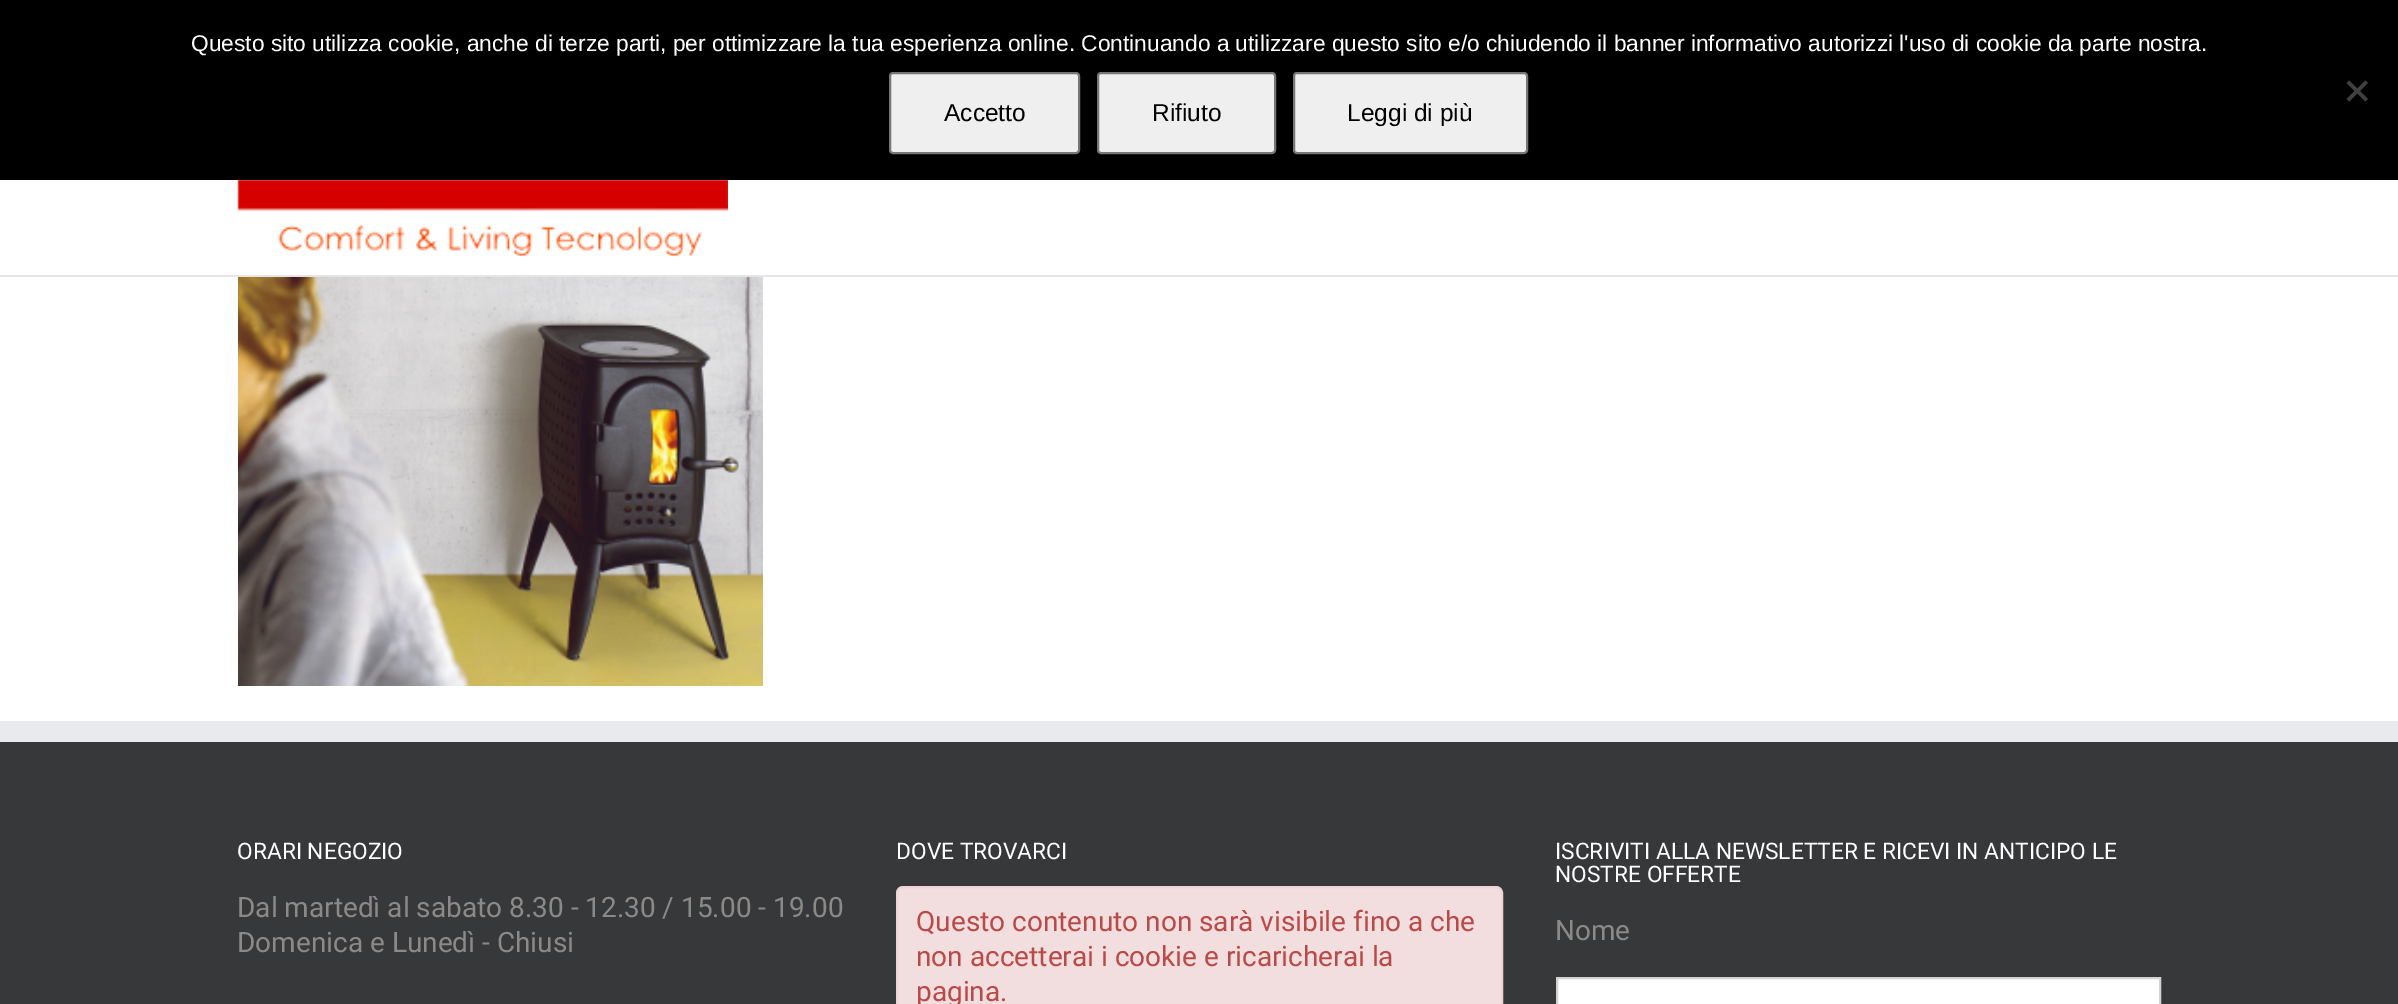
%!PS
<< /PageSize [2398 1004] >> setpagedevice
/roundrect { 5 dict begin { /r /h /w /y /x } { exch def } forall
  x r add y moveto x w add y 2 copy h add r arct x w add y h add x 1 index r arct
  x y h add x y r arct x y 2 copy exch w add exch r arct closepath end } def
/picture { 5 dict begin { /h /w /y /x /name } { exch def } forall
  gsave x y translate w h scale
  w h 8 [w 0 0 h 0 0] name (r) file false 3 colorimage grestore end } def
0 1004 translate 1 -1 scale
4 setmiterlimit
1 setgray
0 0 2398 1004 rectfill
0 setgray
0 0 2398 180 rectfill
/LiberationSans-Regular [22.75 0 0 -22.75 0 0] selectfont
1 setgray
191 51 moveto (Questo sito utilizza cookie, anche di terze parti, per ottimizzare la tua esperienza online. Continuando a utilizzare questo sito e/o chiudendo il banner informativo autorizzi l'uso di cookie da parte nostra.) show
0.251 setgray
newpath 2365.5 80.5 moveto 2368 83 lineto 2349 101.5 lineto 2346.5 99 lineto closepath fill
newpath 2346.5 83 moveto 2349 80.5 lineto 2368 99 lineto 2365.5 101.5 lineto closepath fill
0.937 setgray
890 73 189 80 3 roundrect gsave fill grestore
0.463 setgray
2 setlinewidth
stroke
/LiberationSans-Regular [24.5 0 0 -24.5 0 0] selectfont
0 setgray
944 121 moveto (Accetto) show
0.937 setgray
1098 73 177 80 3 roundrect gsave fill grestore
0.463 setgray
stroke
0 setgray
1152 121 moveto (Rifiuto) show
0.937 setgray
1294 73 233 80 3 roundrect gsave fill grestore
0.463 setgray
stroke
0 setgray
1347 121 moveto (Leggi di più) show
0.898 setgray
0 275 2398 2 rectfill
(img1.rgb) 237 180 491 76 picture
(img2.rgb) 238 277 525 409 picture
0.212 0.22 0.224 setrgbcolor
0 742 2398 262 rectfill
0.914 0.918 0.933 setrgbcolor
0 721 2398 21 rectfill
/Roboto-Regular [22.75 0 0 -22.75 0 0] selectfont
1 setgray
237 859 moveto (ORARI NEGOZIO) show
/Roboto-Regular [28 0 0 -28 0 0] selectfont
0.549 0.537 0.537 setrgbcolor
237 917 moveto (Dal martedì al sabato 8.30 - 12.30 / 15.00 - 19.00) show
237 952 moveto (Domenica e Lunedì - Chiusi) show
/Roboto-Regular [22.75 0 0 -22.75 0 0] selectfont
1 setgray
896 859 moveto (DOVE TROVARCI) show
0.949 0.871 0.871 setrgbcolor
897 887 605 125 6 roundrect gsave fill grestore
0.933 0.827 0.843 setrgbcolor
stroke
/Roboto-Regular [28 0 0 -28 0 0] selectfont
0.725 0.29 0.282 setrgbcolor
916 931 moveto (Questo contenuto non sarà visibile fino a che) show
916 966 moveto (non accetterai i cookie e ricaricherai la) show
916 1001 moveto (pagina.) show
/Roboto-Regular [22.75 0 0 -22.75 0 0] selectfont
1 setgray
1555 859 moveto (ISCRIVITI ALLA NEWSLETTER E RICEVI IN ANTICIPO LE) show
1555 882 moveto (NOSTRE OFFERTE) show
/Roboto-Regular [28 0 0 -28 0 0] selectfont
0.549 0.537 0.537 setrgbcolor
1555 940 moveto (Nome) show
1 setgray
newpath 1557 978 moveto 2160 978 lineto 2160 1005 lineto 1557 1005 lineto closepath gsave fill grestore
0.824 setgray
stroke
showpage
